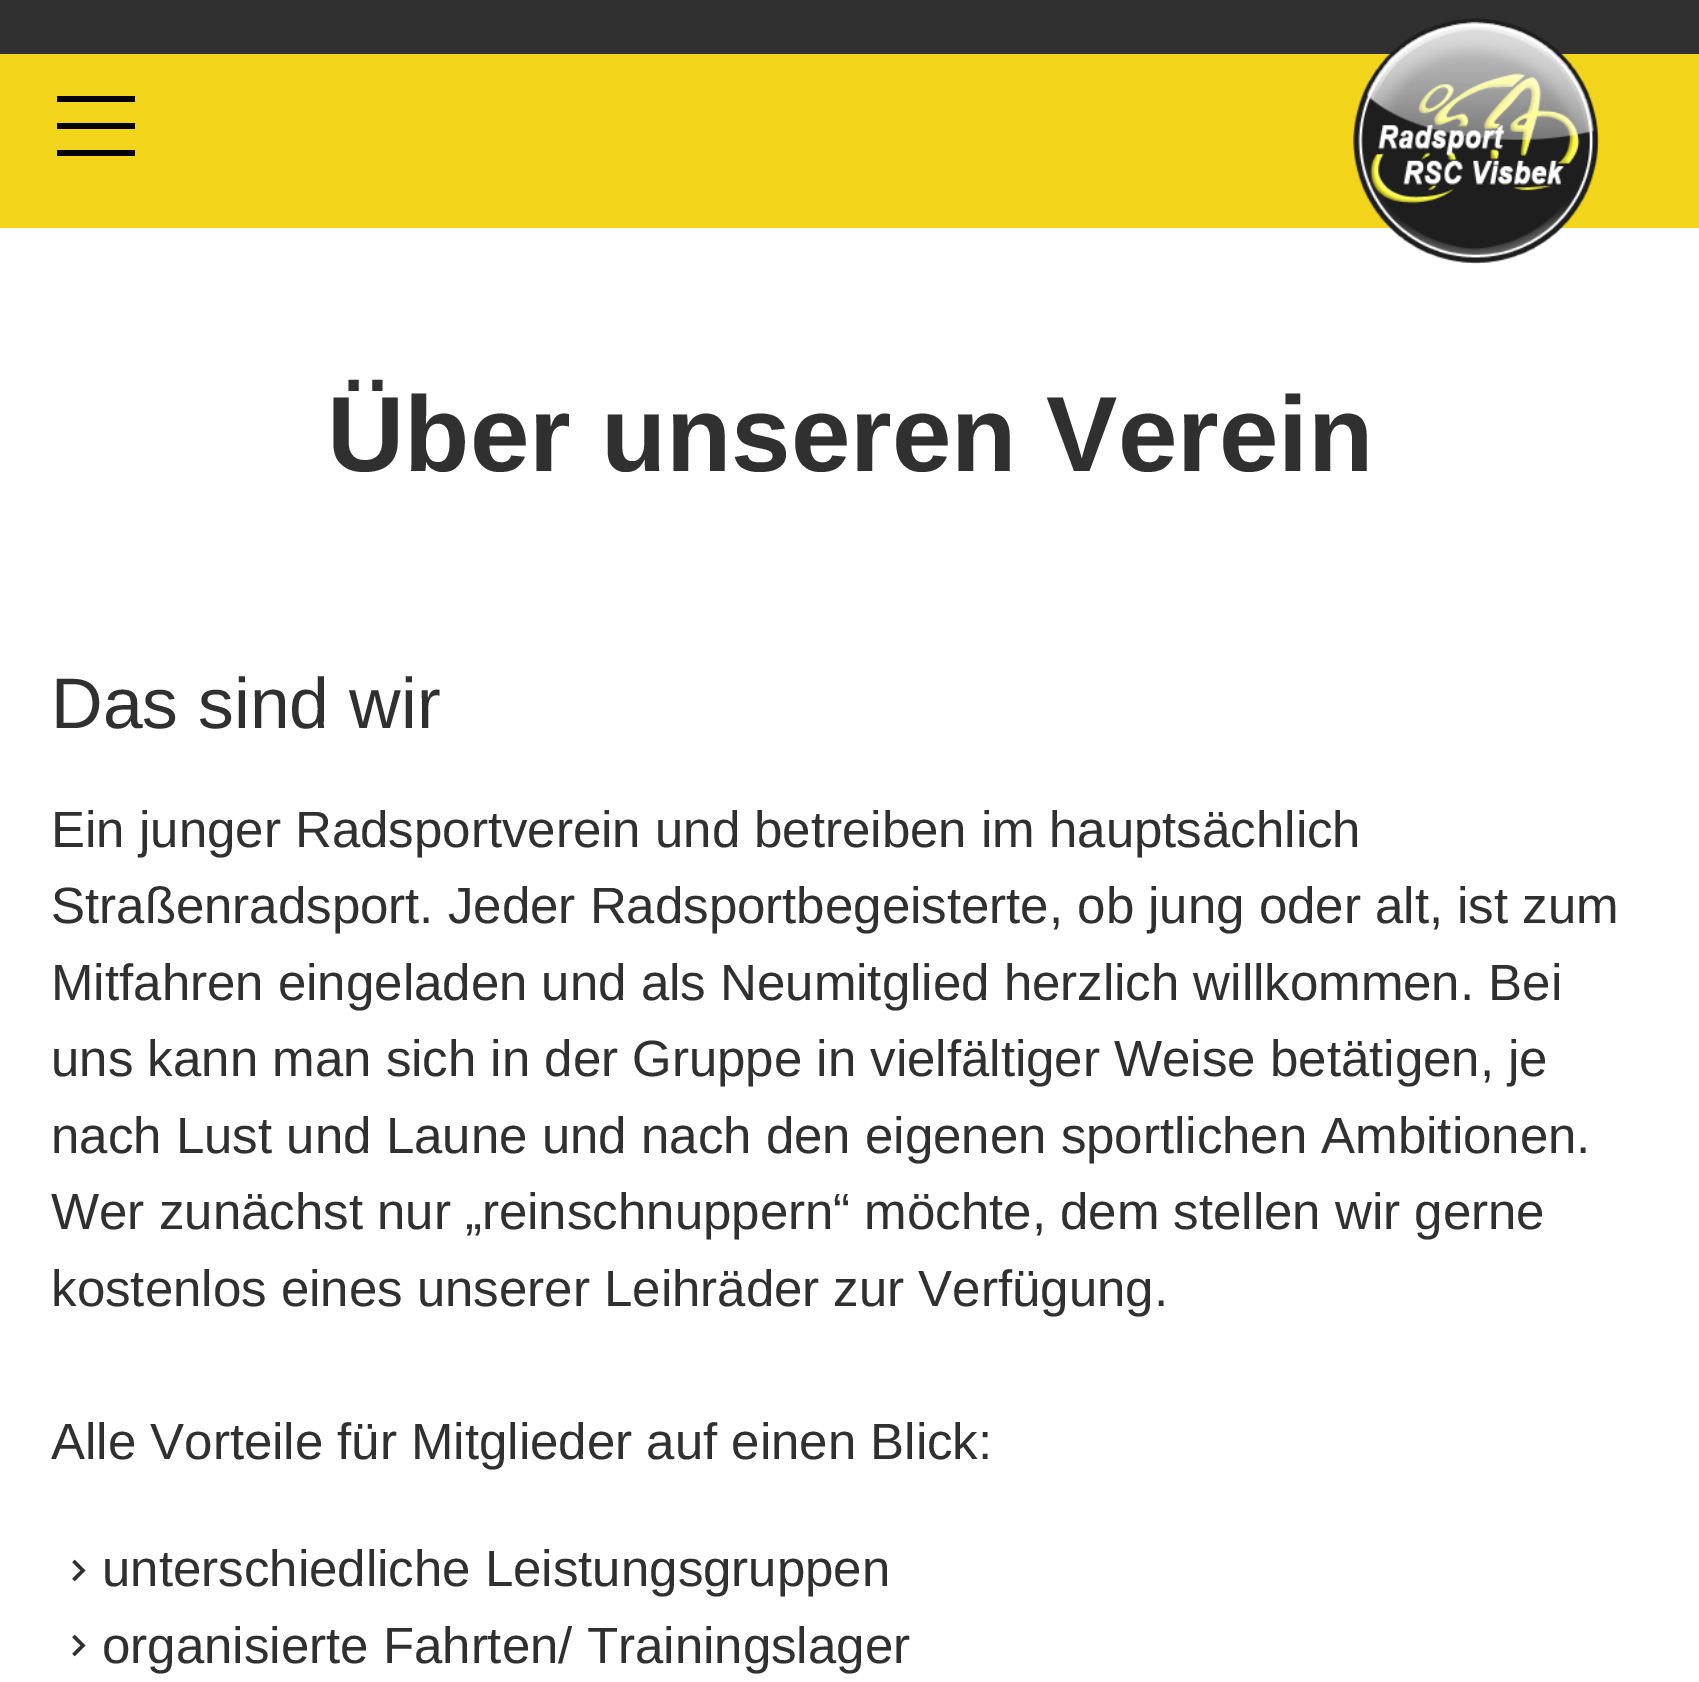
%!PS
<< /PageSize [1699 1682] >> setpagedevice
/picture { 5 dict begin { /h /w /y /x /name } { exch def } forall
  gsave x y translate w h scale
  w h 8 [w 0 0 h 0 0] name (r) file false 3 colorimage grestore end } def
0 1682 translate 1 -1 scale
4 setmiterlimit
1 setgray
0 0 1699 1682 rectfill
0.949 0.835 0.106 setrgbcolor
0 54 1699 174 rectfill
0.188 setgray
0 0 1699 54 rectfill
0 setgray
57 96 78 6 rectfill
57 123 78 6 rectfill
57 150 78 6 rectfill
(img1.rgb) 1353 18 246 246 picture
/LiberationSans-Bold [107 0 0 -107 0 0] selectfont
0.188 setgray
327 471 moveto (Über unseren Verein) show
/LiberationSans-Regular [71.5 0 0 -71.5 0 0] selectfont
51 728 moveto (Das sind wir) show
/LiberationSans-Regular [51 0 0 -51 0 0] selectfont
51 847 moveto (Ein junger Radsportverein und betreiben im hauptsächlich) show
51 923 moveto (Straßenradsport. Jeder Radsportbegeisterte, ob jung oder alt, ist zum) show
51 1000 moveto (Mitfahren eingeladen und als Neumitglied herzlich willkommen. Bei) show
51 1076 moveto (uns kann man sich in der Gruppe in vielfältiger Weise betätigen, je) show
51 1153 moveto (nach Lust und Laune und nach den eigenen sportlichen Ambitionen.) show
51 1229 moveto (Wer zunächst nur „reinschnuppern“ möchte, dem stellen wir gerne) show
51 1306 moveto (kostenlos eines unserer Leihräder zur Verfügung.) show
51 1459 moveto (Alle Vorteile für Mitglieder auf einen Blick:) show
3.2 setlinewidth
newpath 73.5 1561 moveto 83 1570.5 lineto 73.5 1580 lineto stroke
102 1586 moveto (unterschiedliche Leistungsgruppen) show
newpath 73.5 1636 moveto 83 1645.5 lineto 73.5 1655 lineto stroke
102 1663 moveto (organisierte Fahrten/ Trainingslager) show
showpage
